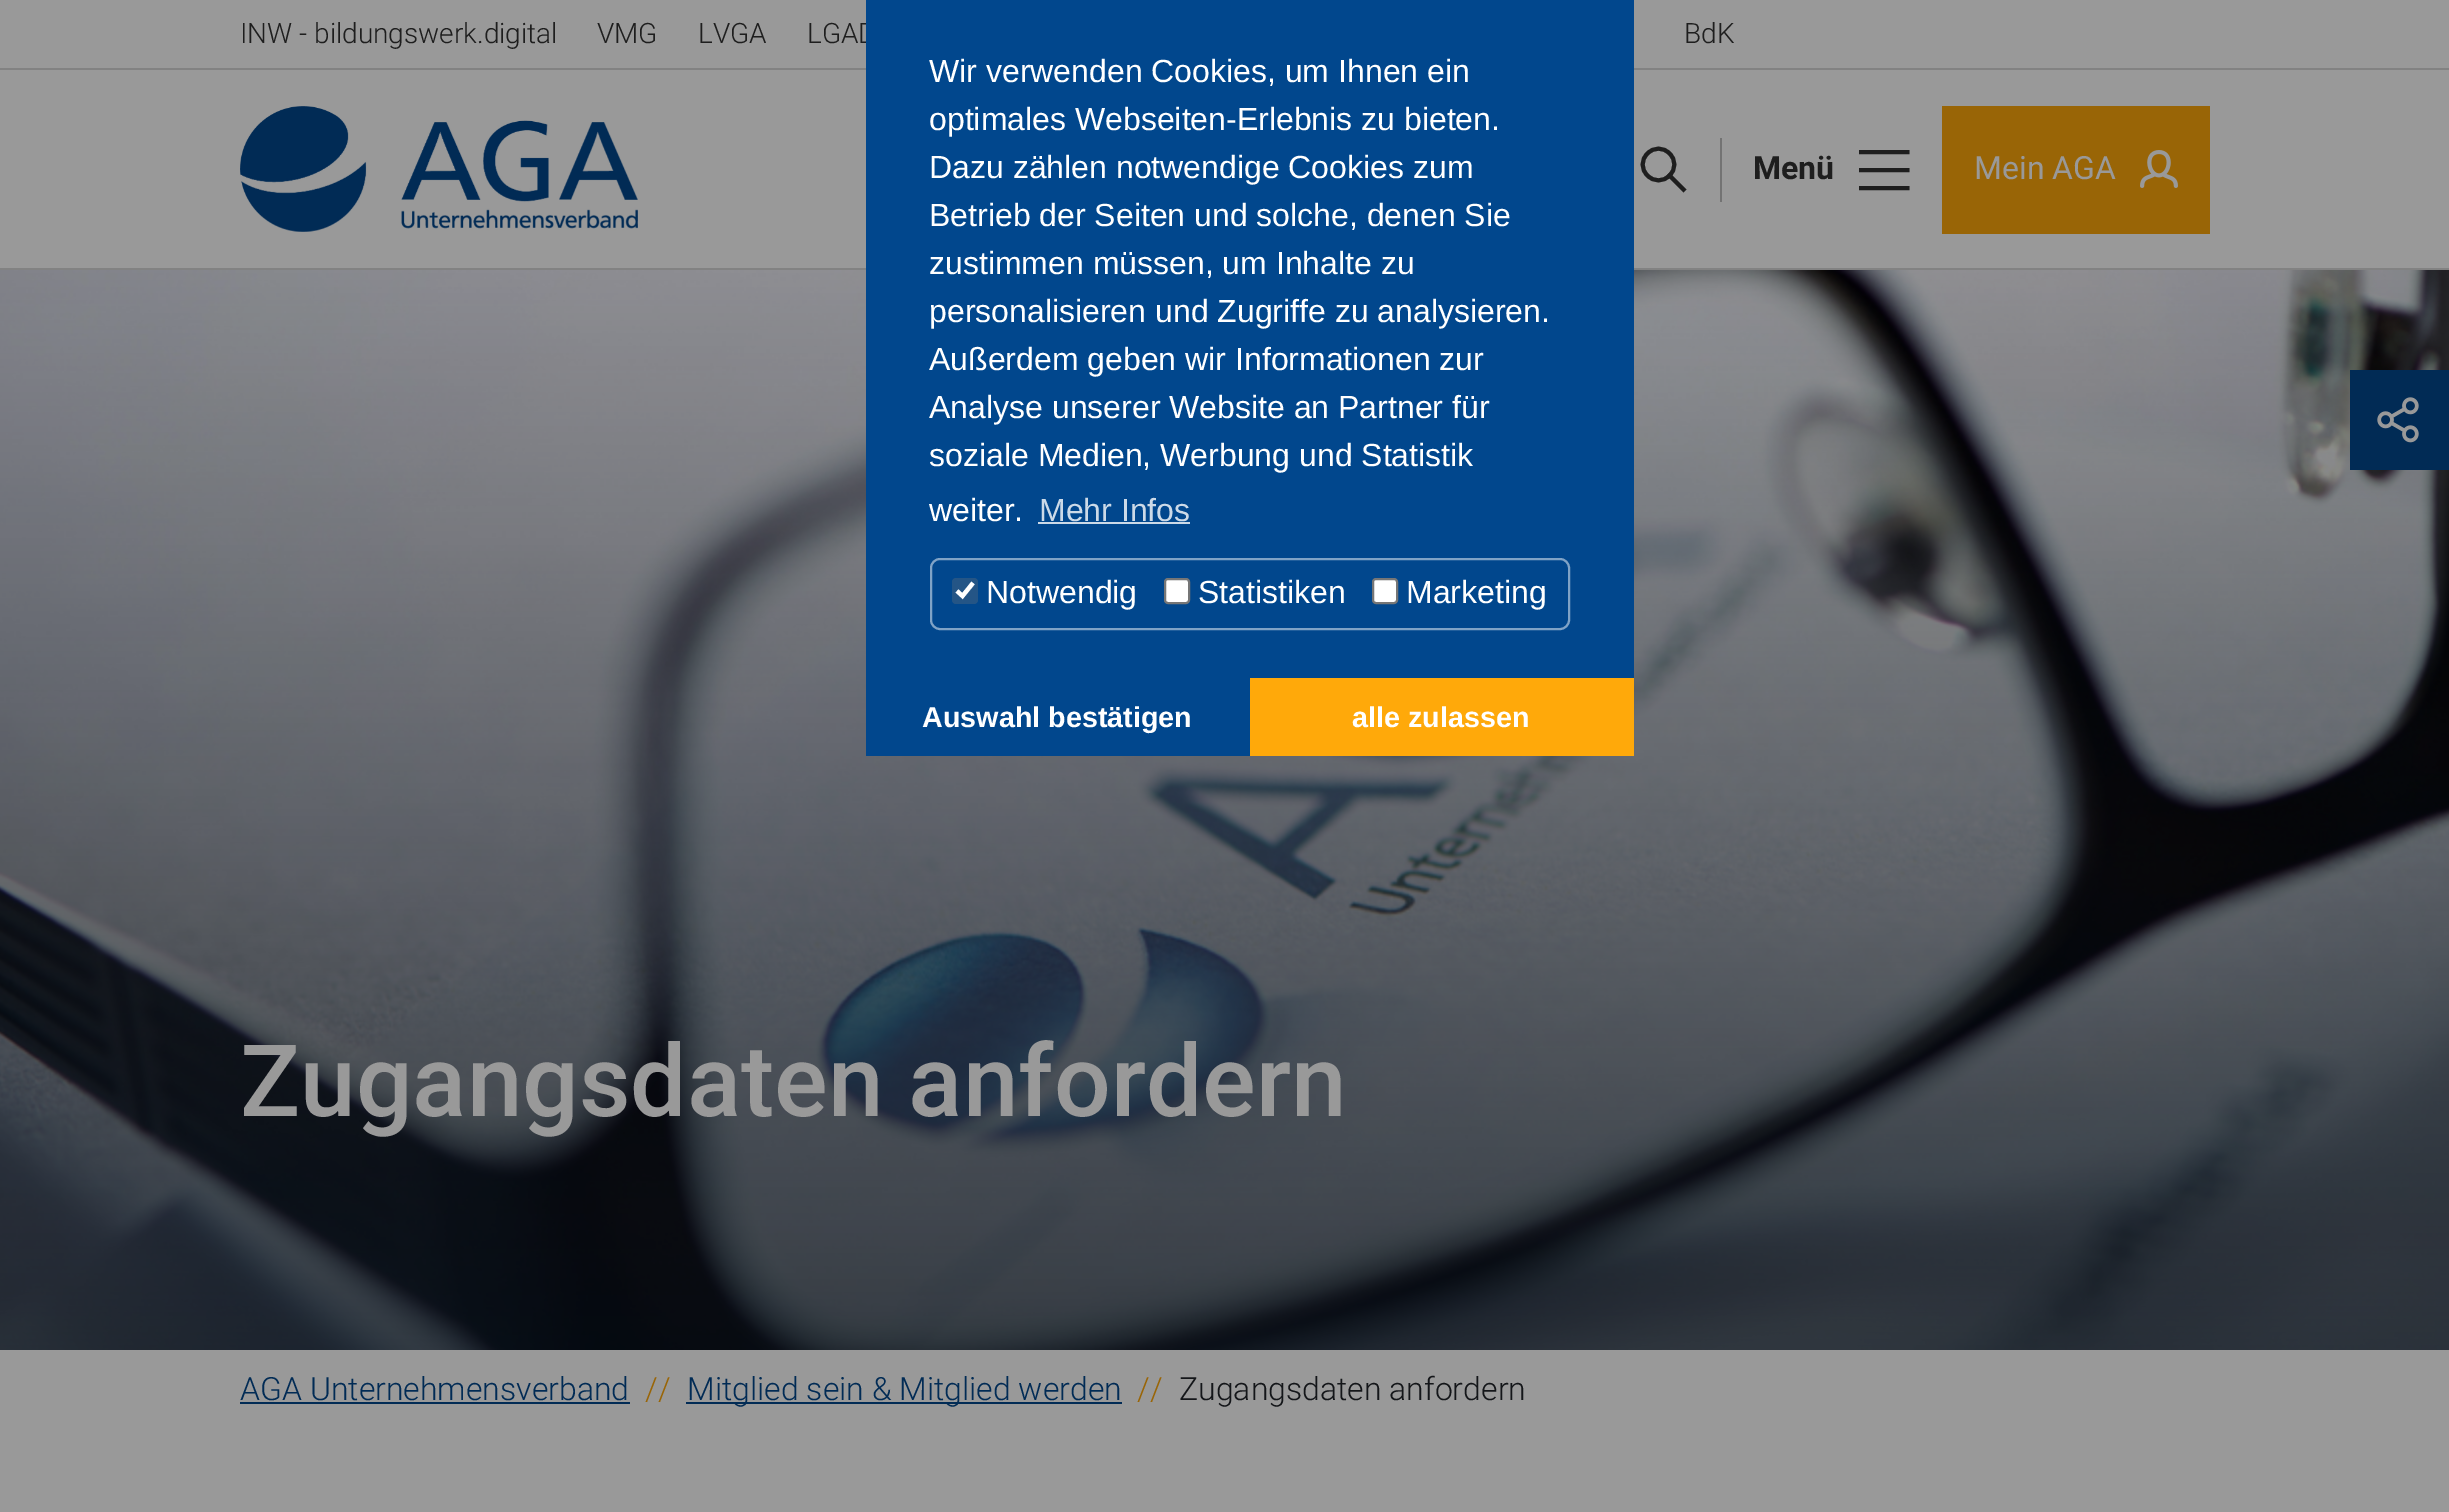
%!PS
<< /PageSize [2449 1512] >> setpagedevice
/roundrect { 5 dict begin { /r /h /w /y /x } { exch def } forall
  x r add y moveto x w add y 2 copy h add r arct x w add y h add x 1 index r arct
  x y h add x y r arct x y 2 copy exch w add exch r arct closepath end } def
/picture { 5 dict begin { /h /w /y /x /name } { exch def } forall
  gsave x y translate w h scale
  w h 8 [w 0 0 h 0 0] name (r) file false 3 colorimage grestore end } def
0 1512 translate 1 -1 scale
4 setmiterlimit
0.6 setgray
0 0 2449 1512 rectfill
0.51 setgray
0 68 2449 2 rectfill
/Roboto-Light [28 0 0 -28 0 0] selectfont
0.118 setgray
240 43 moveto (INW - bildungswerk.digital) show
597 43 moveto (VMG) show
698 43 moveto (LVGA) show
807 43 moveto (LGAD) show
1684 43 moveto (BdK) show
0.51 setgray
0 268 2449 2 rectfill
(img4.rgb) 0 270 2449 1080 picture
0.004 0.278 0.553 setrgbcolor
866 0 768 756 rectfill
/LiberationSans-Regular [32 0 0 -32 0 0] selectfont
1 setgray
929 82 moveto (Wir verwenden Cookies, um Ihnen ein) show
929 130 moveto (optimales Webseiten-Erlebnis zu bieten.) show
929 178 moveto (Dazu zählen notwendige Cookies zum) show
929 226 moveto (Betrieb der Seiten und solche, denen Sie) show
929 274 moveto (zustimmen müssen, um Inhalte zu) show
929 322 moveto (personalisieren und Zugriffe zu analysieren.) show
929 370 moveto (Außerdem geben wir Informationen zur) show
929 418 moveto (Analyse unserer Website an Partner für) show
929 466 moveto (soziale Medien, Werbung und Statistik) show
929 521 moveto (weiter.) show
0.8 0.855 0.91 setrgbcolor
1039 521 moveto (Mehr Infos) show
1038 522 152 2 rectfill
0.502 0.639 0.776 setrgbcolor
2 setlinewidth
931 559 638 70 9 roundrect stroke
0.141 0.333 0.525 setrgbcolor
952 578 26 26 4 roundrect fill
1 setgray
4.2 setlinewidth
newpath 957 591 moveto 962.5 596 lineto 973 583 lineto stroke
986 603 moveto (Notwendig) show
1165 579 24 24 3 roundrect gsave fill grestore
0.463 setgray
2 setlinewidth
stroke
1 setgray
1198 603 moveto (Statistiken) show
1373 579 24 24 3 roundrect gsave fill grestore
0.463 setgray
stroke
1 setgray
1406 603 moveto (Marketing) show
/LiberationSans-Bold [28.75 0 0 -28.75 0 0] selectfont
922 727 moveto (Auswahl bestätigen) show
1 0.663 0.039 setrgbcolor
1250 678 384 78 rectfill
1 setgray
1352 727 moveto (alle zulassen) show
(img1.rgb) 240 106 398 126 picture
0.118 setgray
4 setlinewidth
newpath 1669.5 153.5 moveto 1676 159.5 1676 169.5 1669.5 175.5 curveto 1663.5 182 1653.5 182 1647.5 175.5 curveto 1641 169.5 1641 159.5 1647.5 153.5 curveto 1653.5 147 1663.5 147 1669.5 153.5 curveto closepath stroke
2 setlinecap
newpath 1669.5 175.5 moveto 1683.5 189.5 lineto stroke
0.451 setgray
1720 138 2 64 rectfill
/Roboto-Bold [32 0 0 -32 0 0] selectfont
0.118 setgray
1753 179 moveto (Menü) show
newpath 1861 152 moveto 1907.5 152 lineto 1861 170 moveto 1907.5 170 lineto 1861 188 moveto 1907.5 188 lineto stroke
0.6 0.396 0.024 setrgbcolor
1942 106 268 128 rectfill
/Roboto-Regular [32 0 0 -32 0 0] selectfont
0.6 setgray
1974 179 moveto (Mein AGA) show
(img2.rgb) 2140 150 38 38 picture
0.004 0.169 0.333 setrgbcolor
2350 370 99 100 rectfill
(img3.rgb) 2377 397 42 46 picture
/Roboto-Medium [100 0 0 -100 0 0] selectfont
0.6 setgray
240 1116 moveto (Zugangsdaten anfordern) show
/Roboto-Light [32 0 0 -32 0 0] selectfont
0.004 0.169 0.333 setrgbcolor
240 1400 moveto (AGA Unternehmensverband) show
240 1402 390 2 rectfill
0.6 0.396 0.024 setrgbcolor
645 1400 moveto (//) show
0.004 0.169 0.333 setrgbcolor
686 1402 436 2 rectfill
687 1400 moveto (Mitglied sein & Mitglied werden) show
0.6 0.396 0.024 setrgbcolor
1137 1400 moveto (//) show
0.078 0.086 0.098 setrgbcolor
1179 1400 moveto (Zugangsdaten anfordern) show
showpage
